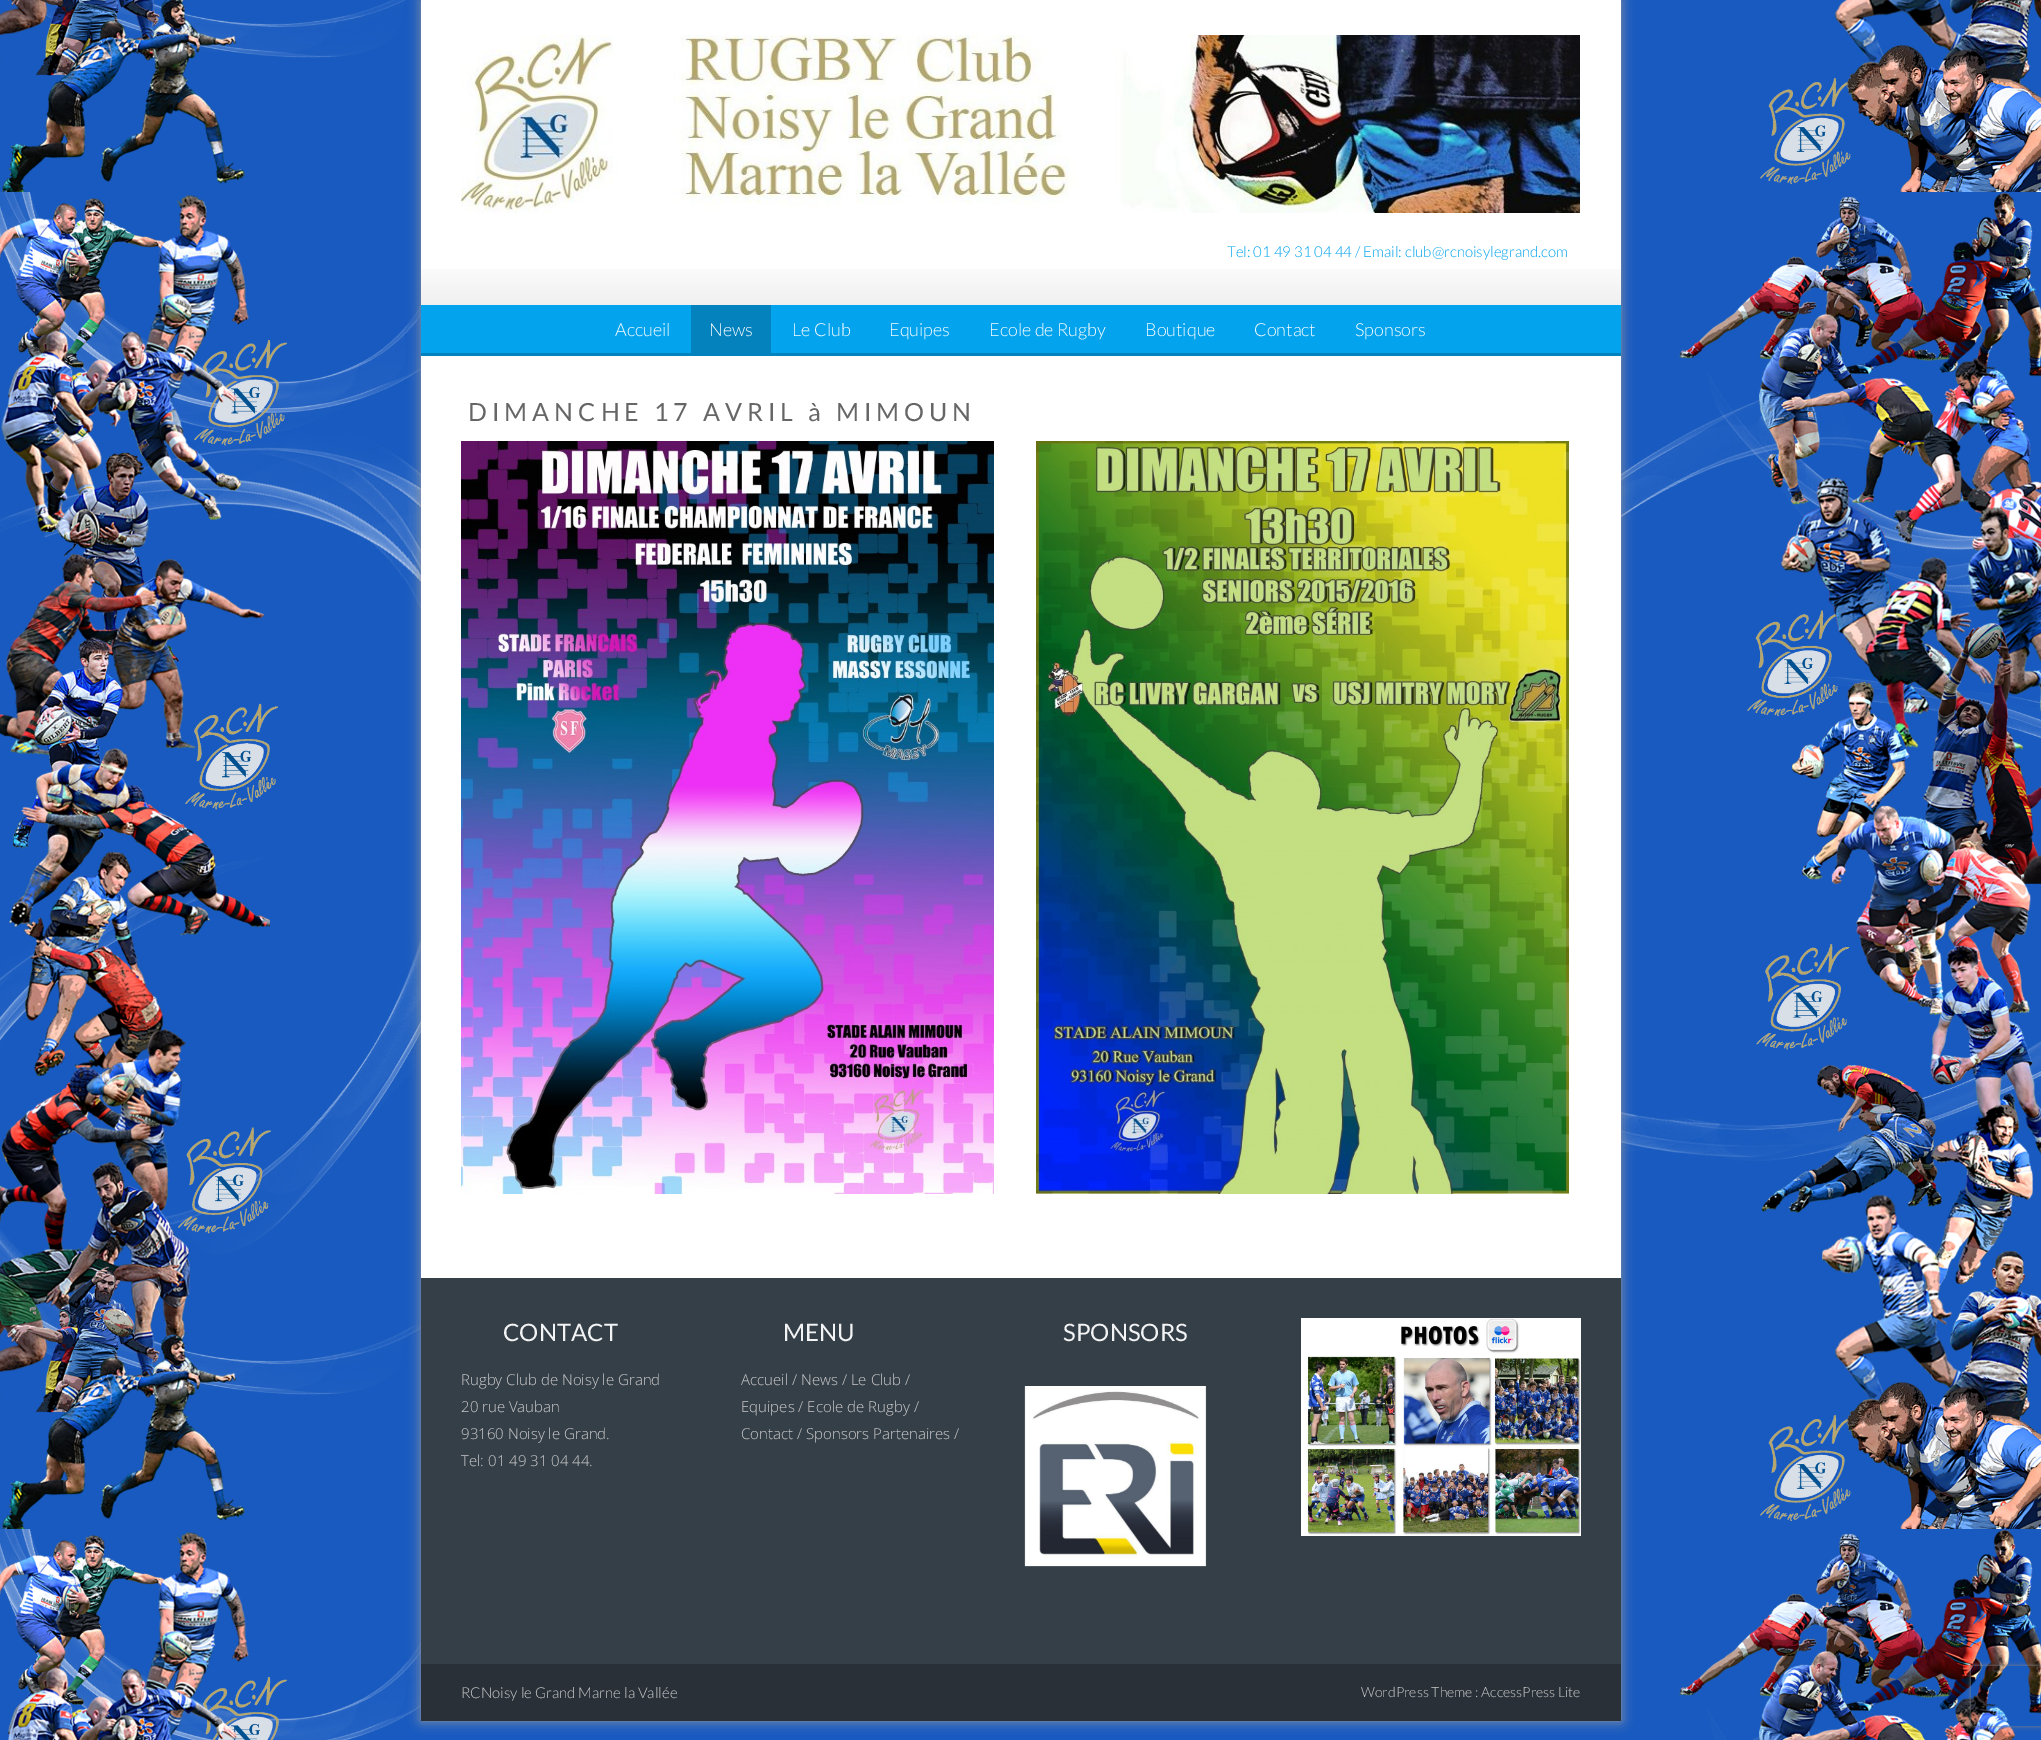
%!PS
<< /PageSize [2041 1740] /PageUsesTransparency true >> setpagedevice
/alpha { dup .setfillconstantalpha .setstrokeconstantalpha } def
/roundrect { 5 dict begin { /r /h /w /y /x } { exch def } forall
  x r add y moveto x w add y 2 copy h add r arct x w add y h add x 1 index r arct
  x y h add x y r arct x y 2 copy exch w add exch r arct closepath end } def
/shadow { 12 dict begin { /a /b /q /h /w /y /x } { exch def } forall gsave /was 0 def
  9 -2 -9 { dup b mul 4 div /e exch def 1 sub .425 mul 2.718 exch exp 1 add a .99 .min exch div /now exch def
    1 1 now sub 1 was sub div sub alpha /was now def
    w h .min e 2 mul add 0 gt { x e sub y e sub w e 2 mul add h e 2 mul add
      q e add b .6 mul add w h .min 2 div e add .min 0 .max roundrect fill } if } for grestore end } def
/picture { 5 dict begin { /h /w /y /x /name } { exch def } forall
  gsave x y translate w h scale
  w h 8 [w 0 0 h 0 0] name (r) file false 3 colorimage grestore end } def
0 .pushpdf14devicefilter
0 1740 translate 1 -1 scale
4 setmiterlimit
1 setgray
0 0 2041 1740 rectfill
(img1.rgb) 0 0 2041 1740 picture
0.6 setgray
421 0 1200 1721 0 6 1 shadow
1 setgray
421 0 1200 1278 rectfill
(img2.rgb) 421 269 1200 36 picture
(img3.rgb) 461 35 1119 178 picture
/Lato-Light [15 0 0 -15 0 0] selectfont
0.016 0.639 0.929 setrgbcolor
1227 257 moveto (Tel: 01 49 31 04 44 / Email: club@rcnoisylegrand.com) show
421 305 1200 48 rectfill
0.012 0.51 0.745 setrgbcolor
421 353 1200 3 rectfill
/Lato-Light [18 0 0 -18 0 0] selectfont
1 setgray
615 336 moveto (Accueil) show
0.012 0.51 0.745 setrgbcolor
691 305 80 48 rectfill
1 setgray
709 336 moveto (News) show
792 336 moveto (Le Club) show
889 336 moveto (Equipes) show
989 336 moveto (Ecole de Rugby) show
1145 336 moveto (Boutique) show
1254 336 moveto (Contact) show
1355 336 moveto (Sponsors) show
/Lato-Regular [25 0 0 -25 0 0] selectfont
0.4 setgray
468 421 moveto 5 0 (DIMANCHE 17 AVRIL à MIMOUN) ashow
(img4.rgb) 461 441 533 753 picture
(img5.rgb) 1036 441 533 753 picture
0.208 0.247 0.278 setrgbcolor
421 1278 1200 386 rectfill
/Lato-Regular [24 0 0 -24 0 0] selectfont
0.949 0.953 0.957 setrgbcolor
503 1341 moveto (CONTACT) show
/OpenSans-Light [15 0 0 -15 0 0] selectfont
0.8 setgray
461 1385 moveto (Rugby Club de Noisy le Grand) show
461 1412 moveto (20 rue Vauban) show
461 1439 moveto (93160 Noisy le Grand.) show
461 1466 moveto (Tel: 01 49 31 04 44.) show
/Lato-Regular [24 0 0 -24 0 0] selectfont
0.949 0.953 0.957 setrgbcolor
783 1341 moveto (MENU) show
/OpenSans-Light [15 0 0 -15 0 0] selectfont
0.8 setgray
741 1385 moveto (Accueil / News / Le Club /) show
741 1412 moveto (Equipes / Ecole de Rugby /) show
741 1439 moveto (Contact / Sponsors Partenaires /) show
/Lato-Regular [24 0 0 -24 0 0] selectfont
0.949 0.953 0.957 setrgbcolor
1063 1341 moveto (SPONSORS) show
(img6.rgb) 1024 1386 183 181 picture
(img7.rgb) 1301 1318 280 218 picture
0.161 0.188 0.216 setrgbcolor
421 1664 1200 57 rectfill
/Lato-Light [15 0 0 -15 0 0] selectfont
0.8 setgray
461 1698 moveto (RCNoisy le Grand Marne la Vallée) show
/Lato-Light [14 0 0 -14 0 0] selectfont
1361 1697 moveto (WordPress Theme : AccessPress Lite) show
gsave
newpath 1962 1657 moveto 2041 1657 lineto 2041 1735 lineto 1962 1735 lineto closepath 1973 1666 moveto 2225 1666 lineto 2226 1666 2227 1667 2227 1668 curveto 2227 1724 lineto 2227 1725 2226 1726 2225 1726 curveto 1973 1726 lineto 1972 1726 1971 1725 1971 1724 curveto 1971 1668 lineto 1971 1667 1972 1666 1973 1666 curveto closepath eoclip newpath
0.502 setgray
1971 1666 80 60 2 2.5 1 shadow
grestore
.poppdf14devicefilter showpage
